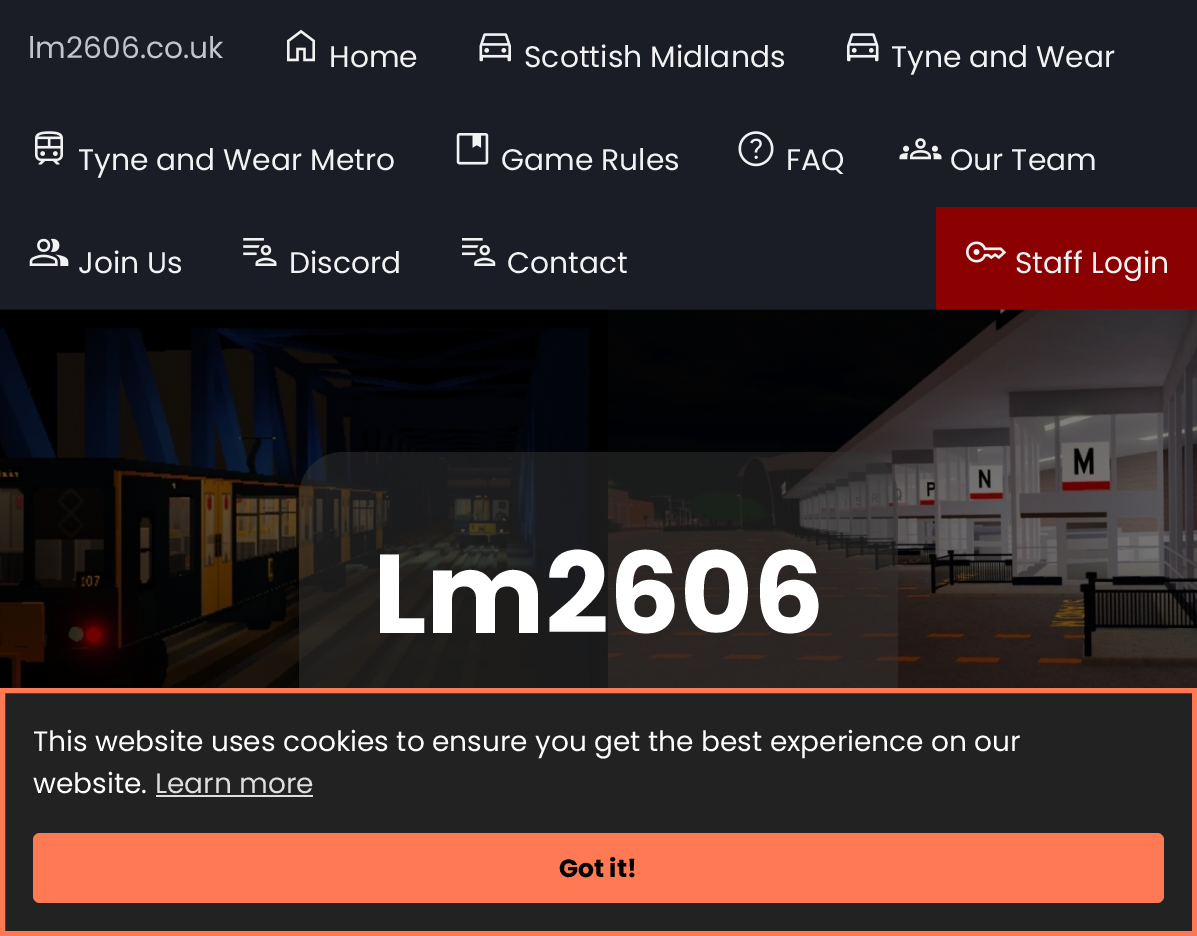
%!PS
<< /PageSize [1197 936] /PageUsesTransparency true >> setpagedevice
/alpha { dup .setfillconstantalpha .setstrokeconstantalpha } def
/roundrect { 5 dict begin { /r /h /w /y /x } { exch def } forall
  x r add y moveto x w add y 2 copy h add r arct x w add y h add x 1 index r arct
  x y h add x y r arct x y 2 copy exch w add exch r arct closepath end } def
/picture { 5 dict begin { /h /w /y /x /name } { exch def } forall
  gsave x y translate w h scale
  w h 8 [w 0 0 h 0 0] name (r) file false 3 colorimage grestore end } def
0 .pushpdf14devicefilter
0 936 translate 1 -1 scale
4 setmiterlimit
0.102 0.11 0.149 setrgbcolor
0 0 1197 936 rectfill
/Poppins-Regular [29.75 0 0 -29.75 0 0] selectfont
0.757 0.769 0.784 setrgbcolor
28 58 moveto (lm2606.co.uk) show
(img1.rgb) 287 29 28 33 picture
0.949 setgray
329 67 moveto (Home) show
(img2.rgb) 479 33 32 29 picture
524 67 moveto (Scottish Midlands) show
(img3.rgb) 847 33 32 29 picture
891 67 moveto (Tyne and Wear) show
(img4.rgb) 35 131 28 34 picture
78 170 moveto (Tyne and Wear Metro) show
(img5.rgb) 456 133 33 32 picture
501 170 moveto (Game Rules) show
(img6.rgb) 738 131 36 36 picture
786 170 moveto (FAQ) show
(img7.rgb) 899 138 43 22 picture
950 170 moveto (Our Team) show
(img8.rgb) 29 238 40 28 picture
78 273 moveto (Join Us) show
(img9.rgb) 243 238 34 28 picture
289 273 moveto (Discord) show
(img10.rgb) 462 238 34 28 picture
507 273 moveto (Contact) show
0.545 0 0 setrgbcolor
936 207 261 103 rectfill
(img11.rgb) 966 241 41 22 picture
0.949 setgray
1015 273 moveto (Staff Login) show
(img12.rgb) 0 309 1197 379 picture
0.5 alpha
0.2 setgray
299 452 599 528 44 roundrect fill
/Poppins-Bold [112 0 0 -112 0 0] selectfont
1 alpha
1 setgray
373 633 moveto (Lm2606) show
0.133 setgray
newpath 2.5 690.5 moveto 1194.5 690.5 lineto 1194.5 933.5 lineto 2.5 933.5 lineto closepath gsave fill grestore
1 0.475 0.329 setrgbcolor
5 setlinewidth
stroke
/Poppins-Regular [28 0 0 -28 0 0] selectfont
1 setgray
33 751 moveto (This website uses cookies to ensure you get the best experience on our) show
33 793 moveto (website.) show
0.871 setgray
155 793 moveto (Learn more) show
156 795 157 2 rectfill
1 0.475 0.329 setrgbcolor
33 833 1131 70 7 roundrect fill
/Poppins-Bold [25 0 0 -25 0 0] selectfont
0 setgray
559 877 moveto (Got it!) show
.poppdf14devicefilter showpage
